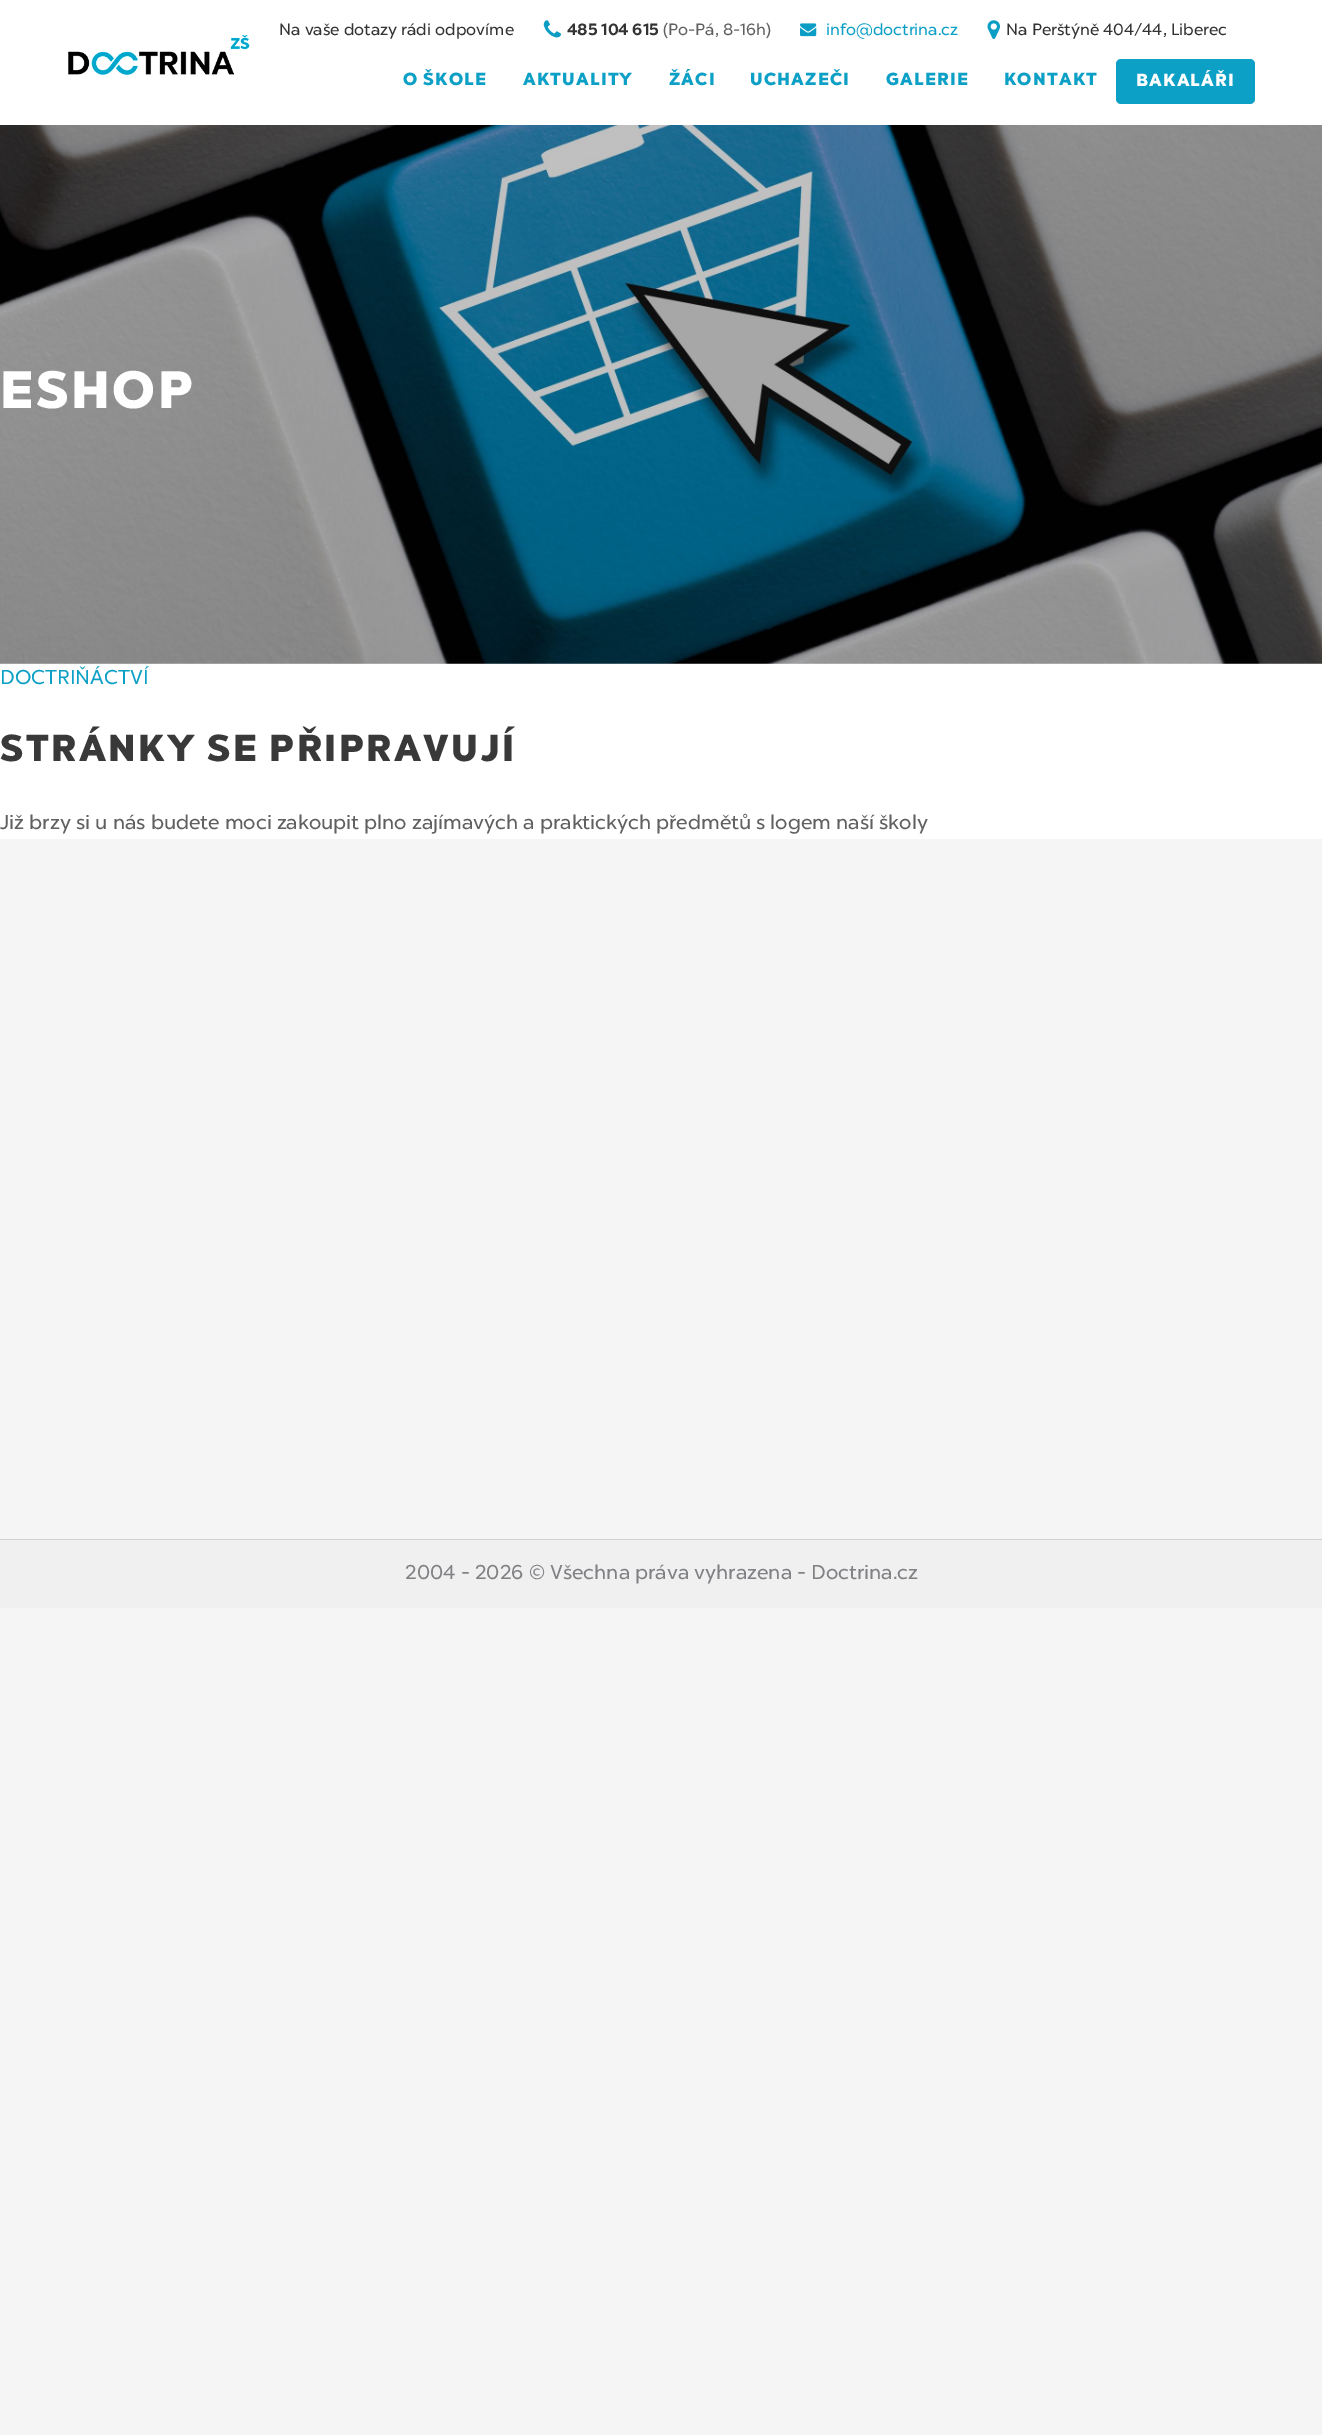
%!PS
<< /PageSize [1322 2435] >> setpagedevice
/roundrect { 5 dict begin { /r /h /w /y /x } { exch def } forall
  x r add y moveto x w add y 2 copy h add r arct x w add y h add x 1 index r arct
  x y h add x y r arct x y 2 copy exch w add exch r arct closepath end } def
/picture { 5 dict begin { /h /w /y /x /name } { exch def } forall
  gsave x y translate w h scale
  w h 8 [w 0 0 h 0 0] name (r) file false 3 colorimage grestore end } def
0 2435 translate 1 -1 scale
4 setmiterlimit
0.961 setgray
0 0 1322 2435 rectfill
1 setgray
0 0 1322 125 rectfill
/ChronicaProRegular-Regular [16.25 0 0 -16.25 0 0] selectfont
0.2 setgray
279 35 moveto (Na vaše dotazy rádi odpovíme) show
(img1.rgb) 543 20 18 18 picture
/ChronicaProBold-Bold [16.25 0 0 -16.25 0 0] selectfont
567 35 moveto (485 104 615) show
/ChronicaProRegular-Regular [16.25 0 0 -16.25 0 0] selectfont
0.376 setgray
663 35 moveto (\(Po-Pá, 8-16h\)) show
(img2.rgb) 800 23 17 14 picture
0.051 0.627 0.776 setrgbcolor
826 35 moveto (info@doctrina.cz) show
(img3.rgb) 987 20 13 19 picture
0.2 setgray
1006 35 moveto (Na Perštýně 404/44, Liberec) show
(img4.rgb) 68 35 182 40 picture
/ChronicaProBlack-Black [17.5 0 0 -17.5 0 0] selectfont
0.051 0.627 0.776 setrgbcolor
403 85 moveto 1.25 0 (O ŠKOLE) ashow
523 85 moveto 1.25 0 (AKTUALITY) ashow
669 85 moveto 1.25 0 (ŽÁCI) ashow
750 85 moveto 1.25 0 (UCHAZEČI) ashow
886 85 moveto 1.25 0 (GALERIE) ashow
1004 85 moveto 1.25 0 (KONTAKT) ashow
1116 59 139 45 5 roundrect fill
1 setgray
1136 86 moveto 1.25 0 (BAKALÁŘI) ashow
(img5.rgb) 0 125 1322 539 picture
/ChronicaProBlack-Black [52.5 0 0 -52.5 0 0] selectfont
0 408 moveto 2.5 0 (ESHOP) ashow
0 664 1322 175 rectfill
/ChronicaProRegular-Regular [20 0 0 -20 0 0] selectfont
0.051 0.627 0.776 setrgbcolor
0 684 moveto (DOCTRIŇÁCTVÍ) show
/ChronicaProBlack-Black [37.5 0 0 -37.5 0 0] selectfont
0.224 setgray
0 761 moveto 2.5 0 (STRÁNKY SE PŘIPRAVUJÍ) ashow
/ChronicaProRegular-Regular [20 0 0 -20 0 0] selectfont
0.376 setgray
0 829 moveto (Již brzy si u nás budete moci zakoupit plno zajímavých a praktických předmětů s logem naší školy) show
0.941 setgray
0 1540 1322 68 rectfill
0.824 setgray
0 1539 1322 1 rectfill
0.502 0.506 0.518 setrgbcolor
405 1579 moveto (2004 - 2026 © Všechna práva vyhrazena - Doctrina.cz) show
showpage
